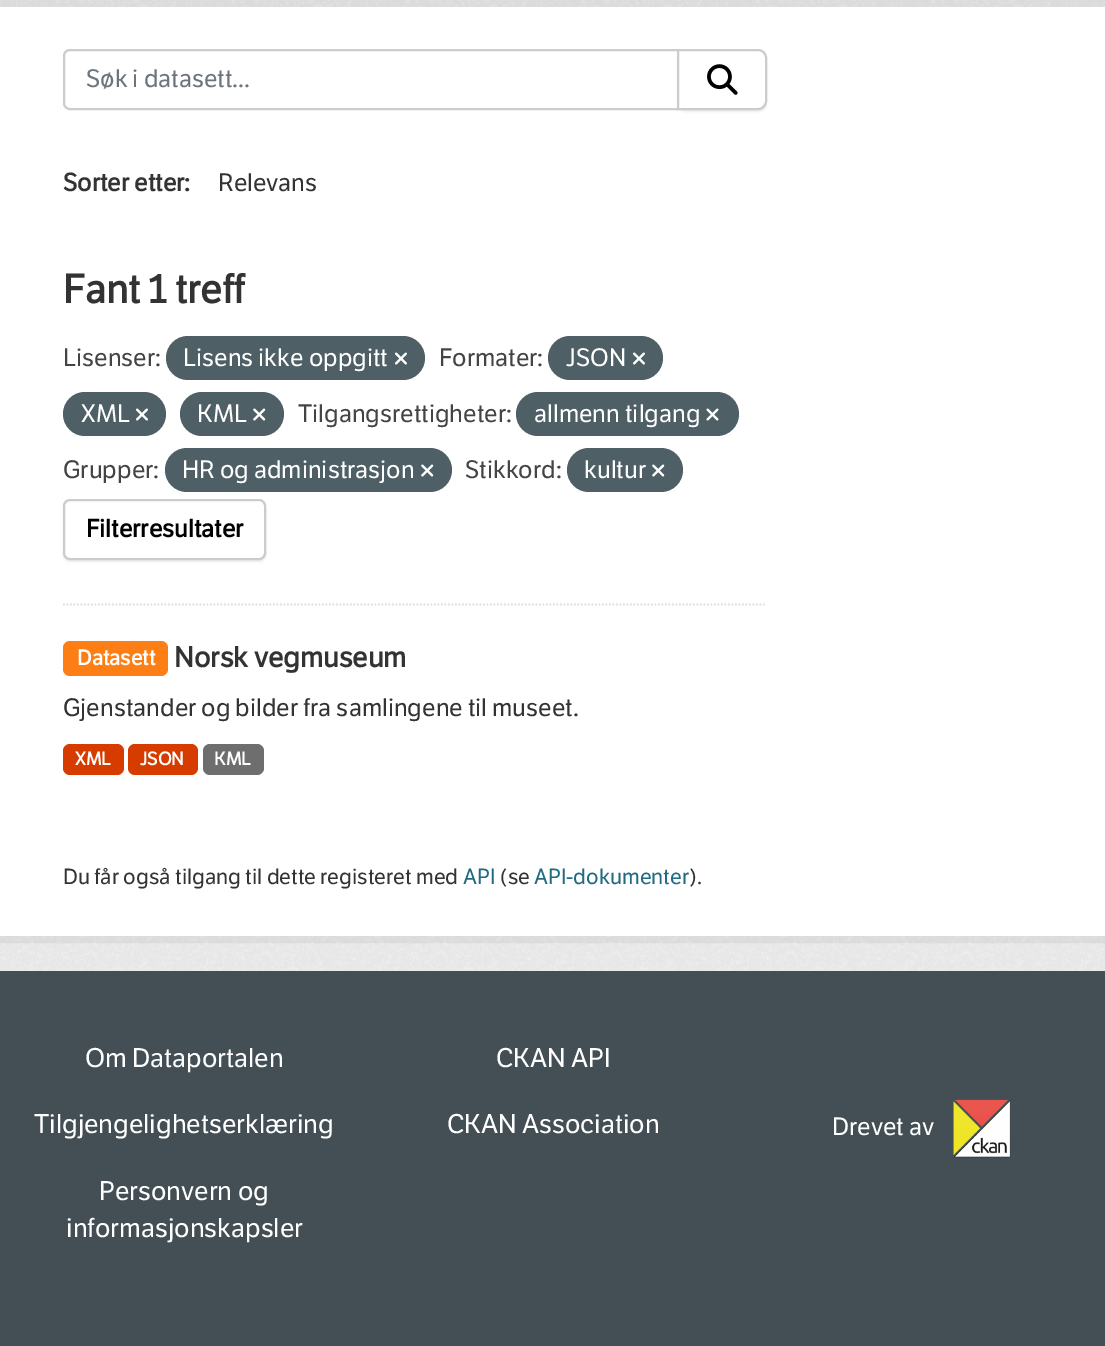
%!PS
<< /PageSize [1105 1346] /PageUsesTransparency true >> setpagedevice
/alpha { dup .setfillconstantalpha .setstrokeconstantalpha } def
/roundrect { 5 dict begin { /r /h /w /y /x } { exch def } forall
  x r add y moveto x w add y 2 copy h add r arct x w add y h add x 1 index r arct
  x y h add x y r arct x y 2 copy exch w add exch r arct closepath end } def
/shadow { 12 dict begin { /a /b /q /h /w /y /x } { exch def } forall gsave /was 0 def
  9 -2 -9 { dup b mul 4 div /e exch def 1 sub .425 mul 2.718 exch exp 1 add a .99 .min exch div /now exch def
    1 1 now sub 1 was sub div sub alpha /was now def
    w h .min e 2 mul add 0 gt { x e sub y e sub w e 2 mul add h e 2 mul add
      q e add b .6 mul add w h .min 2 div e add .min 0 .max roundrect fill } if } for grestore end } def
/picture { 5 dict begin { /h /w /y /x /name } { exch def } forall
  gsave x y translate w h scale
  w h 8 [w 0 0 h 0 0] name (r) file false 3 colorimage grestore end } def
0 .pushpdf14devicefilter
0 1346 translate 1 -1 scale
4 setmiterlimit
0.267 0.31 0.333 setrgbcolor
0 0 1105 1346 rectfill
0.933 setgray
0 0 1105 971 rectfill
(img1.rgb) 0 0 1105 971 picture
0.05 alpha
0 setgray
7 setlinewidth
-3.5 3.5 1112 936 rectstroke
1 alpha
1 setgray
0 7 1105 929 rectfill
0.867 setgray
1.8 setlinewidth
[1.75 1.75] 0 setdash
newpath 63 604.5 moveto 766.5 604.5 lineto stroke
0.8 setgray
2 setlinewidth
[] 0 setdash
newpath 70 50 moveto 678 50 lineto 678 109 lineto 70 109 lineto 66.5 109 64 106.5 64 103 curveto 64 56 lineto 64 52.5 66.5 50 70 50 curveto closepath stroke
/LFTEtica-Regular [24.5 0 0 -24.5 0 0] selectfont
0.424 0.459 0.49 setrgbcolor
86 87 moveto (Søk i datasett...) show
0 setgray
677 51 90 61 9 1 0.07 shadow
1 setgray
newpath 678 50 moveto 758 50 lineto 762.5 50 766 53.5 766 58 curveto 766 101 lineto 766 105.5 762.5 109 758 109 curveto 678 109 lineto closepath gsave fill grestore
0.8 setgray
stroke
(img2.rgb) 707 64 31 31 picture
/LFTEtica-Bold [24.5 0 0 -24.5 0 0] selectfont
0.2 setgray
63 191 moveto (Sorter etter:) show
/LFTEtica-Regular [24.5 0 0 -24.5 0 0] selectfont
218 191 moveto (Relevans) show
/LFTEtica-Bold [39.5 0 0 -39.5 0 0] selectfont
63 303 moveto (Fant 1 treff) show
/LFTEtica-Regular [24.5 0 0 -24.5 0 0] selectfont
0.267 setgray
63 366 moveto (Lisenser:) show
0.306 0.373 0.396 setrgbcolor
166 336 259 44 22 roundrect fill
1 setgray
183 366 moveto (Lisens ikke oppgitt) show
(img3.rgb) 395 352 12 13 picture
0.267 setgray
439 366 moveto (Formater:) show
0.306 0.373 0.396 setrgbcolor
548 336 115 44 22 roundrect fill
1 setgray
566 366 moveto (JSON) show
(img3.rgb) 633 352 12 13 picture
0.306 0.373 0.396 setrgbcolor
63 392 103 44 22 roundrect fill
1 setgray
81 422 moveto (XML) show
(img3.rgb) 136 408 12 13 picture
0.306 0.373 0.396 setrgbcolor
180 392 104 44 22 roundrect fill
1 setgray
197 422 moveto (KML) show
(img4.rgb) 253 408 13 13 picture
0.267 setgray
298 422 moveto (Tilgangsrettigheter:) show
0.306 0.373 0.396 setrgbcolor
516 392 223 44 22 roundrect fill
1 setgray
534 422 moveto (allmenn tilgang) show
(img5.rgb) 706 408 13 13 picture
0.267 setgray
63 478 moveto (Grupper:) show
0.306 0.373 0.396 setrgbcolor
165 448 287 44 22 roundrect fill
1 setgray
182 478 moveto (HR og administrasjon) show
(img4.rgb) 421 464 13 13 picture
0.267 setgray
465 478 moveto (Stikkord:) show
0.306 0.373 0.396 setrgbcolor
567 448 116 44 22 roundrect fill
1 setgray
584 478 moveto (kultur) show
(img4.rgb) 652 464 13 13 picture
0 setgray
63 501 203 61 7 1 0.07 shadow
1 setgray
64 500 201 59 6 roundrect gsave fill grestore
0.8 setgray
stroke
/LFTEtica-Bold [24.5 0 0 -24.5 0 0] selectfont
0 setgray
86 537 moveto (Filterresultater) show
0.992 0.494 0.078 setrgbcolor
63 641 105 35 7 roundrect fill
/LFTEtica-Bold [21 0 0 -21 0 0] selectfont
1 setgray
77 665 moveto (Datasett) show
/LFTEtica-Bold [28 0 0 -28 0 0] selectfont
0.2 setgray
174 667 moveto (Norsk vegmuseum) show
/LFTEtica-Regular [24.5 0 0 -24.5 0 0] selectfont
63 716 moveto (Gjenstander og bilder fra samlingene til museet.) show
0.839 0.231 0 setrgbcolor
63 744 61 31 7 roundrect fill
/LFTEtica-Bold [18 0 0 -18 0 0] selectfont
1 setgray
75 765 moveto (XML) show
0.839 0.231 0 setrgbcolor
128 744 70 31 7 roundrect fill
1 setgray
140 765 moveto (JSON) show
0.431 setgray
203 744 61 31 7 roundrect fill
1 setgray
214 765 moveto (KML) show
/LFTEtica-Regular [21.4 0 0 -21.4 0 0] selectfont
0.2 setgray
63 884 moveto (Du får også tilgang til dette registeret med) show
0.125 0.42 0.51 setrgbcolor
463 884 moveto (API) show
0.2 setgray
500 884 moveto (\(se) show
0.125 0.42 0.51 setrgbcolor
534 884 moveto (API-dokumenter) show
0.2 setgray
689 884 moveto (\).) show
/LFTEtica-Regular [26.25 0 0 -26.25 0 0] selectfont
1 setgray
85 1067 moveto (Om Dataportalen) show
34 1133 moveto (Tilgjengelighetserklæring) show
99 1200 moveto (Personvern og) show
66 1237 moveto (informasjonskapsler) show
496 1067 moveto (CKAN API) show
447 1133 moveto (CKAN Association) show
/LFTEtica-Regular [24.5 0 0 -24.5 0 0] selectfont
832 1135 moveto (Drevet av) show
(img6.rgb) 953 1099 58 59 picture
.poppdf14devicefilter showpage
